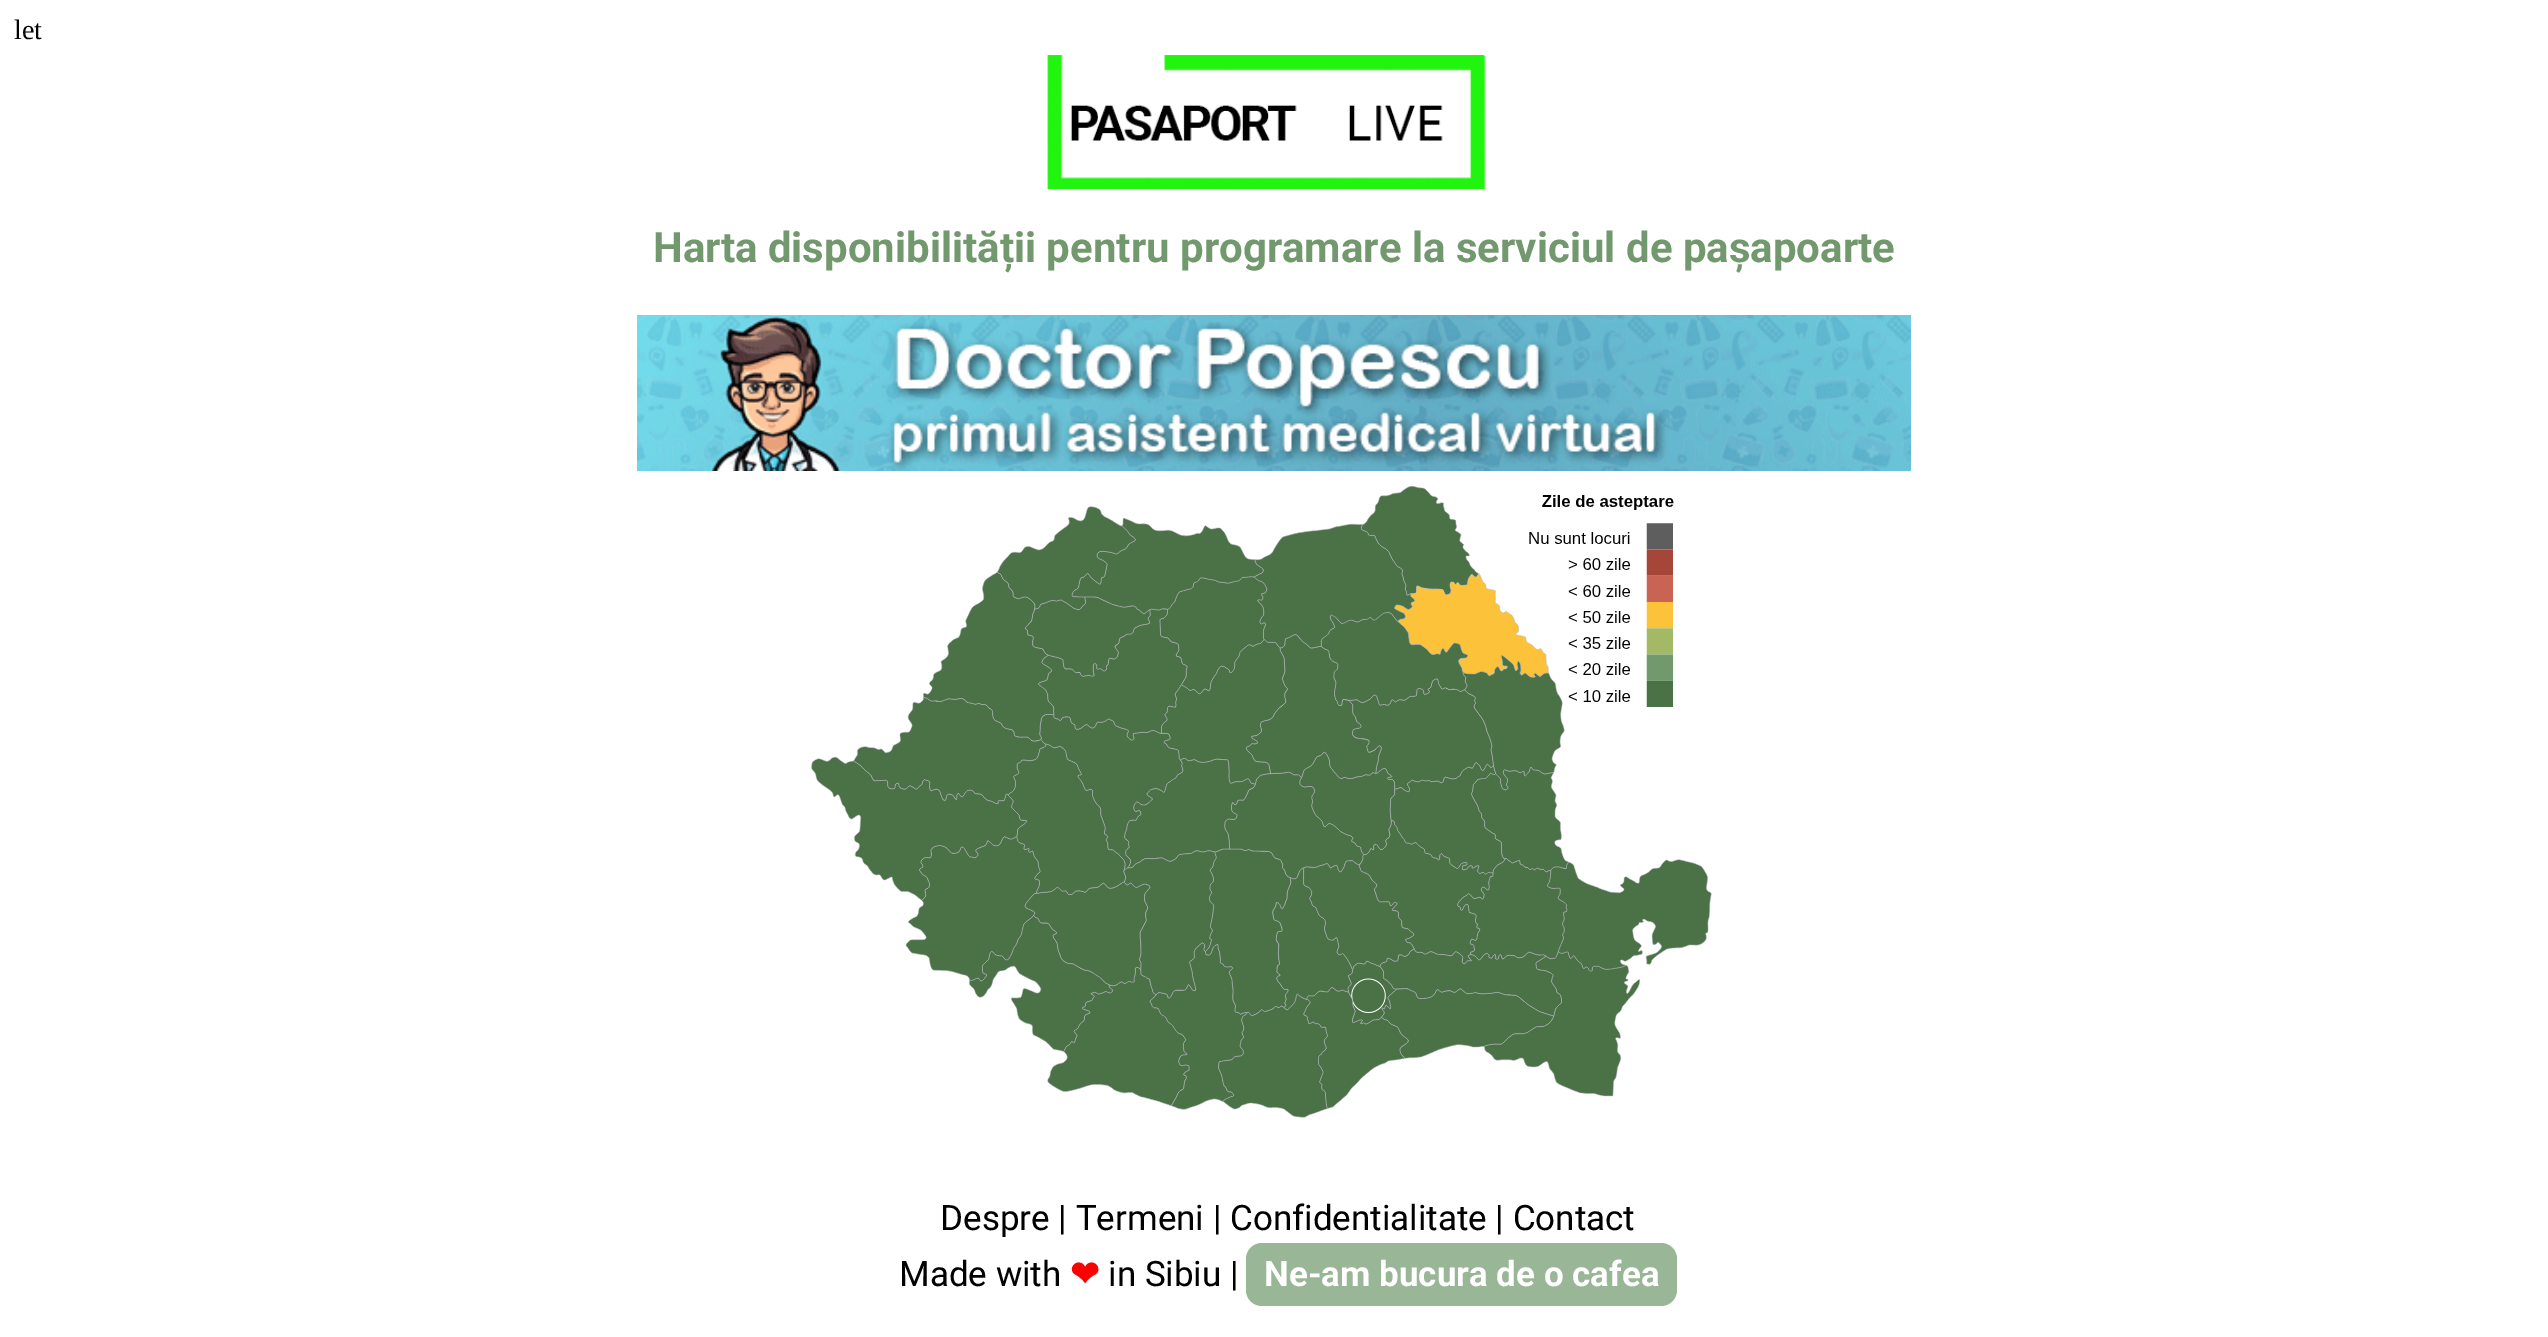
%!PS
<< /PageSize [2548 1337] >> setpagedevice
/roundrect { 5 dict begin { /r /h /w /y /x } { exch def } forall
  x r add y moveto x w add y 2 copy h add r arct x w add y h add x 1 index r arct
  x y h add x y r arct x y 2 copy exch w add exch r arct closepath end } def
/picture { 5 dict begin { /h /w /y /x /name } { exch def } forall
  gsave x y translate w h scale
  w h 8 [w 0 0 h 0 0] name (r) file false 3 colorimage grestore end } def
0 1337 translate 1 -1 scale
4 setmiterlimit
1 setgray
0 0 2548 1337 rectfill
/LiberationSerif-Regular [28 0 0 -28 0 0] selectfont
0 setgray
14 39 moveto (let) show
(img1.rgb) 1047 55 439 134 picture
/Roboto-Bold [42 0 0 -42 0 0] selectfont
0.447 0.596 0.431 setrgbcolor
653 262 moveto (Harta disponibilității pentru programare la serviciul de pașapoarte) show
(img2.rgb) 637 315 1274 156 picture
(img3.rgb) 811 486 901 632 picture
/Roboto-Regular [35 0 0 -35 0 0] selectfont
0 setgray
940 1230 moveto (Despre | Termeni | Confidentialitate | Contact) show
899 1286 moveto (Made with) show
/DejaVuSans-Bold [35 0 0 -35 0 0] selectfont
1 0 0 setrgbcolor
1070 1286 moveto (❤) show
/Roboto-Regular [35 0 0 -35 0 0] selectfont
0 setgray
1108 1286 moveto (in Sibiu |) show
0.6 0.718 0.588 setrgbcolor
1246 1243 431 63 16 roundrect fill
/Roboto-Bold [35 0 0 -35 0 0] selectfont
1 setgray
1264 1286 moveto (Ne-am bucura de o cafea) show
showpage
